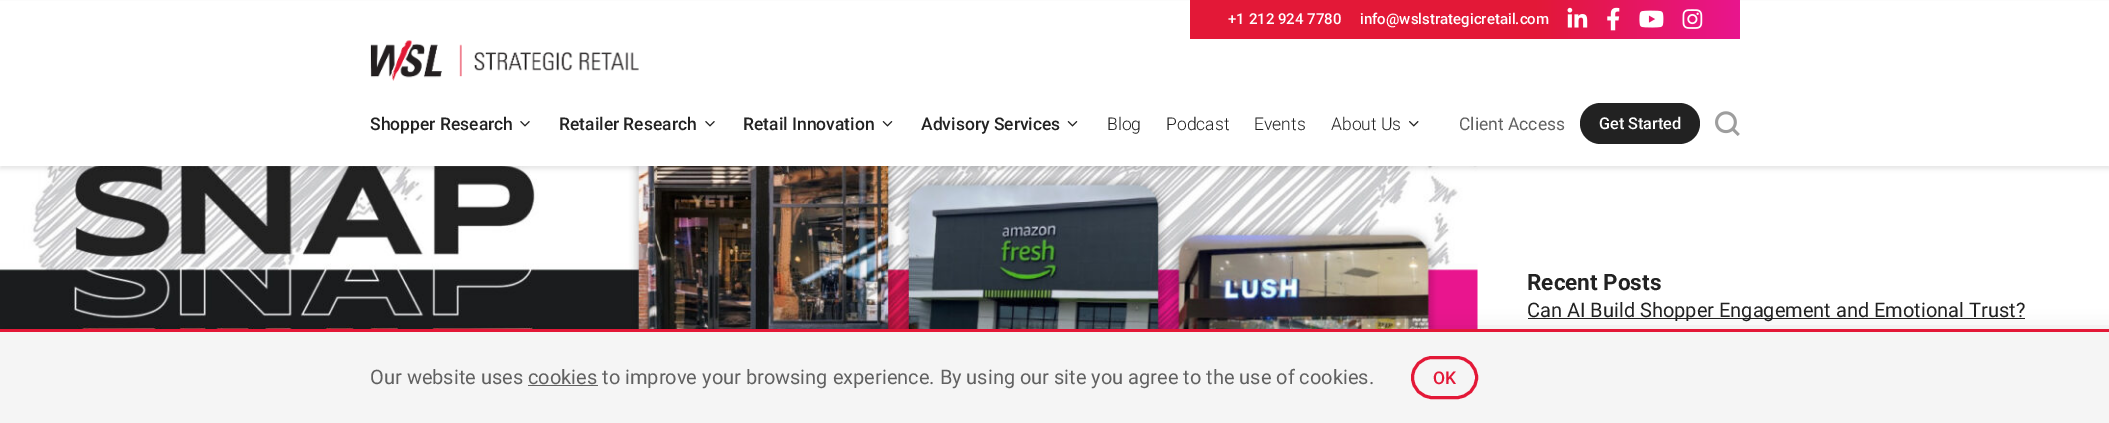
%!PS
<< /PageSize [2109 423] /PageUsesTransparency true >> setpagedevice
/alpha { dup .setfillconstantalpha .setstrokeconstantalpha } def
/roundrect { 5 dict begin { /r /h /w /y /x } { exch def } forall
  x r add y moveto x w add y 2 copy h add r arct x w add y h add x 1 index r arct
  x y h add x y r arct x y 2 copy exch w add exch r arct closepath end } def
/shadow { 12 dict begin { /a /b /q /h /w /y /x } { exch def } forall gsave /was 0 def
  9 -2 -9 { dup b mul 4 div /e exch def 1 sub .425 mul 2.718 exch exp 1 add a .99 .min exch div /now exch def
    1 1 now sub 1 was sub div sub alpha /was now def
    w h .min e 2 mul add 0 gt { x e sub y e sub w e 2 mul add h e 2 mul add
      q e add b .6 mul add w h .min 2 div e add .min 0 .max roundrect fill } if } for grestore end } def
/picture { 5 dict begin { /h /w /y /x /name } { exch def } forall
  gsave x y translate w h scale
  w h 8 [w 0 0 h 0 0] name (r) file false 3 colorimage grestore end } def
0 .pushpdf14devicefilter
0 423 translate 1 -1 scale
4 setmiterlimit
1 setgray
0 0 2109 423 rectfill
(img10.rgb) 0 166 1478 163 picture
0 setgray
0 3 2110 166 0 2 0.09 shadow
1 setgray
0 1 2109 165 rectfill
gsave newpath 1190 0 moveto 1740 0 lineto 1740 39 lineto 1190 39 lineto closepath clip newpath
<< /ShadingType 2 /ColorSpace /DeviceRGB /Coords [1190 19 1740 19] /Extend [true true] /Function << /FunctionType 3 /Domain [0 1] /Functions [<< /FunctionType 2 /Domain [0 1] /C0 [0.89 0.094 0.216] /C1 [0.89 0.094 0.216] /N 1 >> << /FunctionType 2 /Domain [0 1] /C0 [0.89 0.094 0.216] /C1 [0.914 0.082 0.557] /N 1 >>] /Bounds [0.63] /Encode [0 1 0 1] >> >> shfill grestore
/Roboto-Medium [15 0 0 -15 0 0] selectfont
1228 24 moveto (+1 212 924 7780) show
1360 24 moveto (info@wslstrategicretail.com) show
(img1.rgb) 1567 7 21 21 picture
(img2.rgb) 1607 7 13 24 picture
(img3.rgb) 1639 10 25 18 picture
(img4.rgb) 1682 9 21 20 picture
(img5.rgb) 370 40 269 41 picture
/Roboto-Medium [17.5 0 0 -17.5 0 0] selectfont
0.133 setgray
370 130 moveto (Shopper Research) show
(img6.rgb) 520 121 10 6 picture
559 130 moveto (Retailer Research) show
(img6.rgb) 705 121 10 6 picture
743 130 moveto (Retail Innovation) show
(img7.rgb) 882 121 11 6 picture
921 130 moveto (Advisory Services) show
(img7.rgb) 1067 121 11 6 picture
/Roboto-Light [17.5 0 0 -17.5 0 0] selectfont
1107 130 moveto (Blog) show
1166 130 moveto (Podcast) show
1254 130 moveto (Events) show
1331 130 moveto (About Us) show
(img8.rgb) 1409 121 10 6 picture
/Roboto-Regular [17.5 0 0 -17.5 0 0] selectfont
0.38 setgray
1459 130 moveto (Client Access) show
0.133 setgray
1580 103 120 41 20.5 roundrect fill
/Roboto-Medium [16.25 0 0 -16.25 0 0] selectfont
1 setgray
1599 129 moveto (Get Started) show
(img9.rgb) 1715 111 25 25 picture
/Roboto-Bold [22.5 0 0 -22.5 0 0] selectfont
0.133 setgray
1527 290 moveto (Recent Posts) show
1528 318 497 1 rectfill
/Roboto-Regular [20 0 0 -20 0 0] selectfont
1527 317 moveto (Can AI Build Shopper Engagement and Emotional Trust?) show
0 setgray
4 333 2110 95 0 10.5 0.16 shadow
0.961 setgray
0 332 2109 91 rectfill
0.89 0.094 0.216 setrgbcolor
0 329 2109 3 rectfill
0.38 setgray
370 384 moveto (Our website uses cookies to improve your browsing experience. By using our site you agree to the use of cookies.) show
528 385 70 1 rectfill
0.89 0.094 0.216 setrgbcolor
3 setlinewidth
1412.5 357.5 64 40 20 roundrect stroke
/Roboto-Medium [17.5 0 0 -17.5 0 0] selectfont
1433 384 moveto (OK) show
.poppdf14devicefilter showpage
